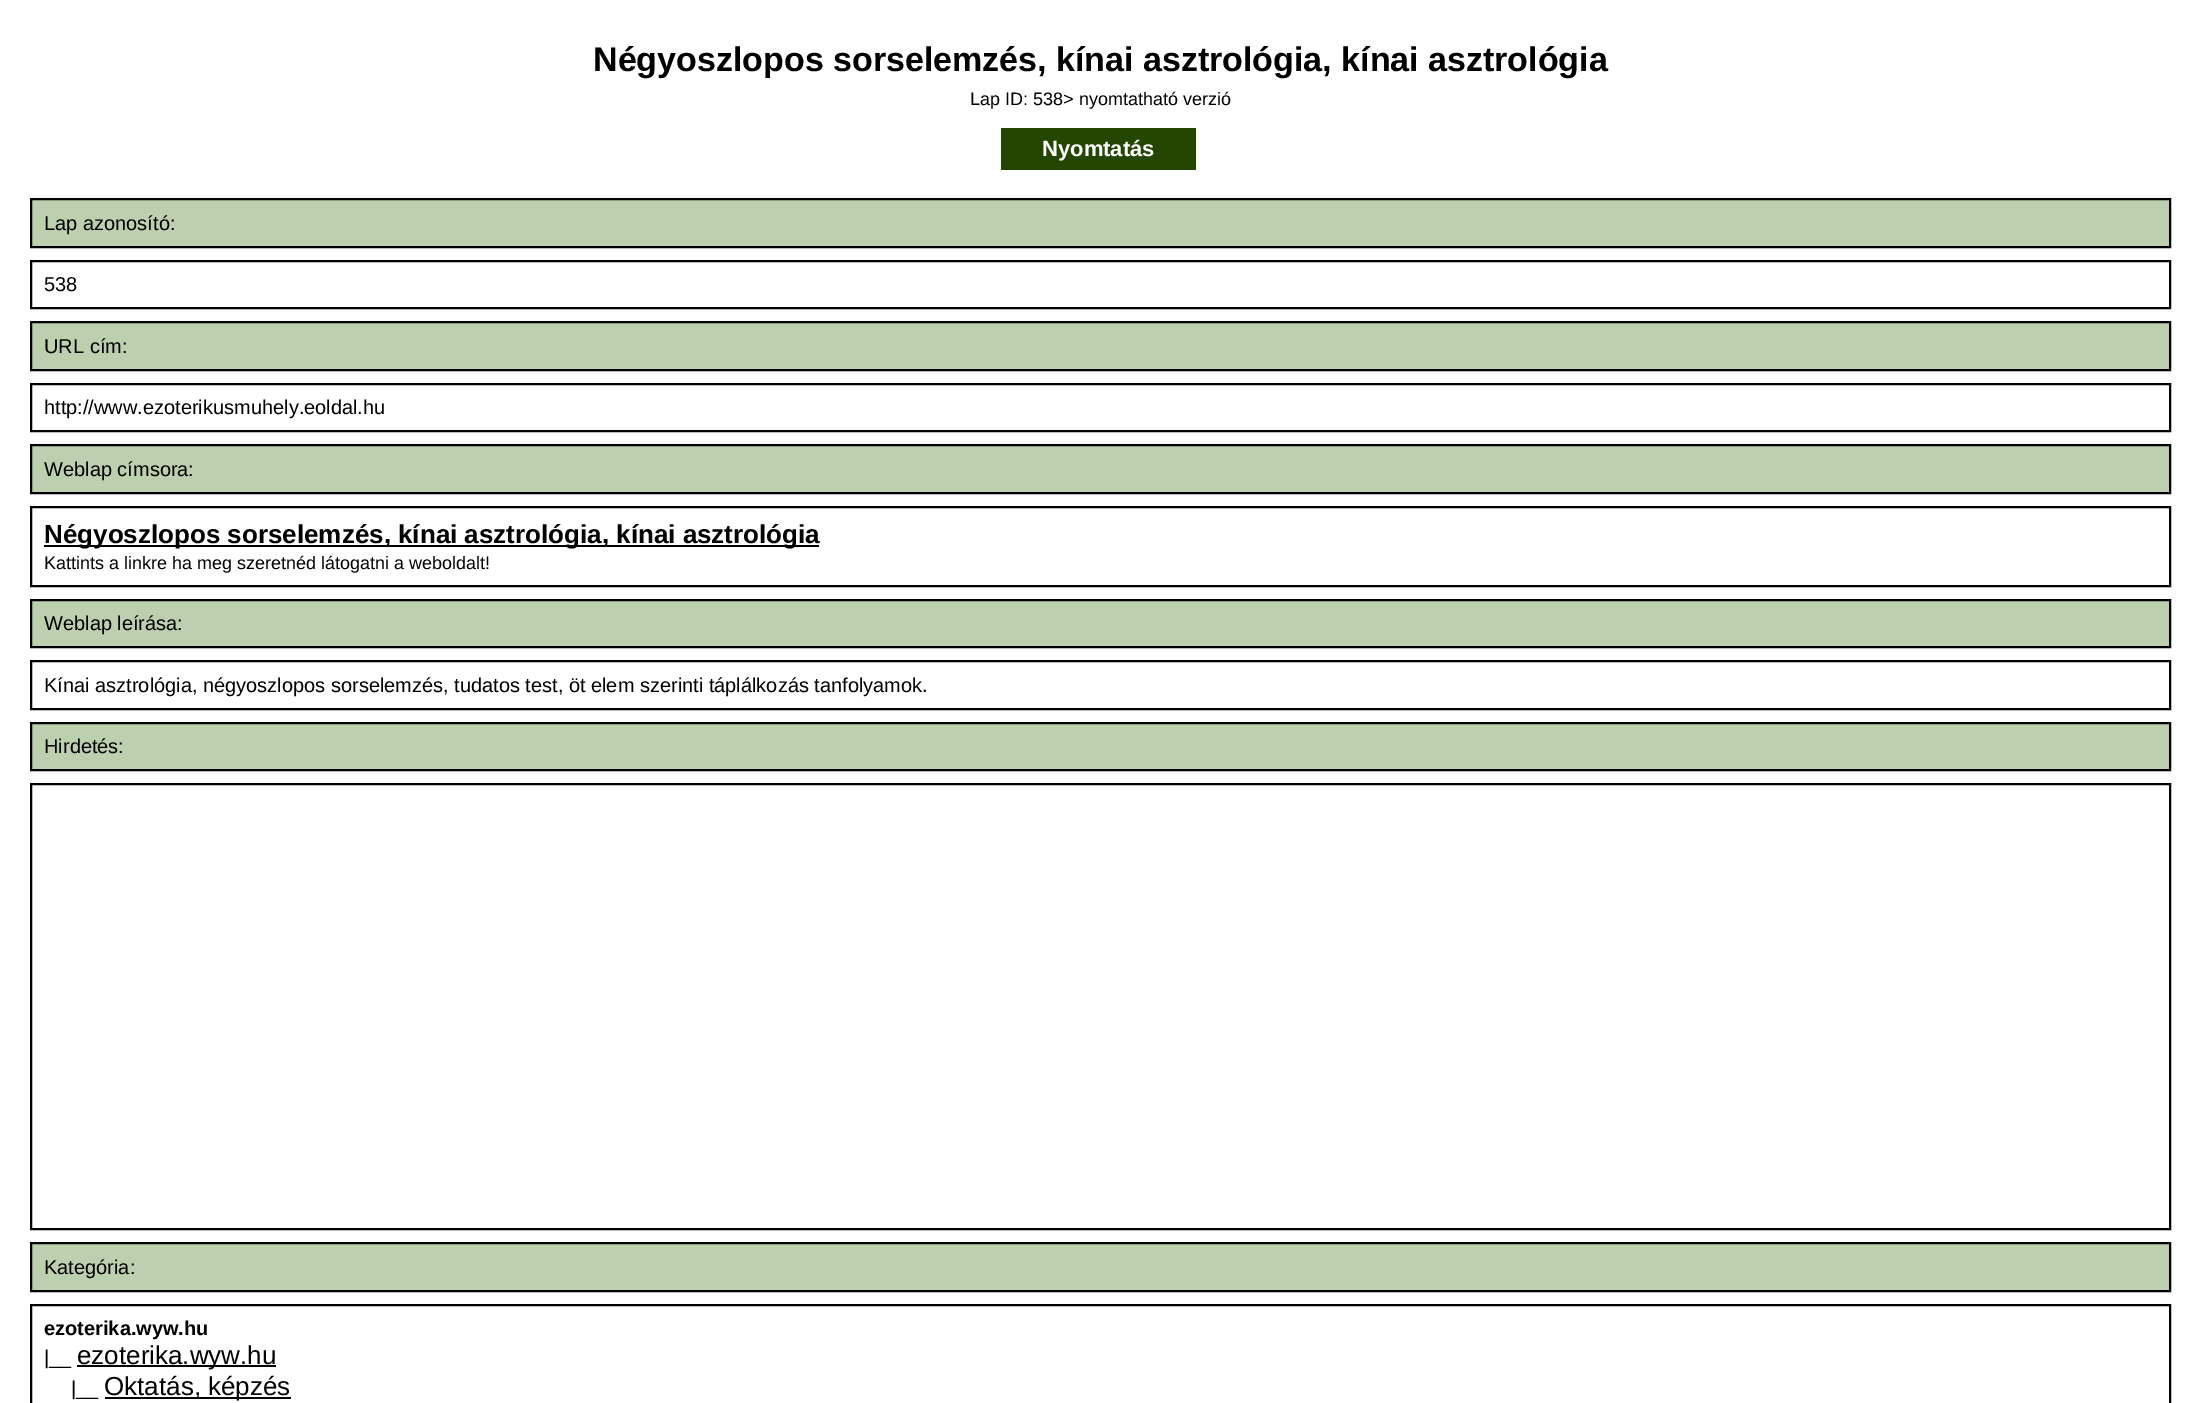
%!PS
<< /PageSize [2200 1403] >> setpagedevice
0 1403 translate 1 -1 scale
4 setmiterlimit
1 setgray
0 0 2200 1403 rectfill
/LiberationSans-Bold [34 0 0 -34 0 0] selectfont
0 setgray
593 71 moveto (Négyoszlopos sorselemzés, kínai asztrológia, kínai asztrológia) show
/LiberationSans-Regular [18 0 0 -18 0 0] selectfont
970 105 moveto (Lap ID: 538> nyomtatható verzió) show
0.137 0.275 0 setrgbcolor
1001 128 195 42 rectfill
/LiberationSans-Bold [22 0 0 -22 0 0] selectfont
1 setgray
1042 156 moveto (Nyomtatás) show
0.737 0.812 0.686 setrgbcolor
newpath 31 199 moveto 2170 199 lineto 2170 247 lineto 31 247 lineto closepath gsave fill grestore
0 setgray
2 setlinewidth
stroke
/LiberationSans-Regular [20 0 0 -20 0 0] selectfont
44 230 moveto (Lap azonosító:) show
31 261 2139 47 rectstroke
44 291 moveto (538) show
0.737 0.812 0.686 setrgbcolor
newpath 31 322 moveto 2170 322 lineto 2170 370 lineto 31 370 lineto closepath gsave fill grestore
0 setgray
stroke
44 353 moveto (URL cím:) show
31 384 2139 47 rectstroke
44 414 moveto (http://www.ezoterikusmuhely.eoldal.hu) show
0.737 0.812 0.686 setrgbcolor
newpath 31 445 moveto 2170 445 lineto 2170 493 lineto 31 493 lineto closepath gsave fill grestore
0 setgray
stroke
44 476 moveto (Weblap címsora:) show
31 507 2139 79 rectstroke
44 545 775 2 rectfill
/LiberationSans-Bold [26 0 0 -26 0 0] selectfont
44 543 moveto (Négyoszlopos sorselemzés, kínai asztrológia, kínai asztrológia) show
/LiberationSans-Regular [18 0 0 -18 0 0] selectfont
44 569 moveto (Kattints a linkre ha meg szeretnéd látogatni a weboldalt!) show
0.737 0.812 0.686 setrgbcolor
newpath 31 600 moveto 2170 600 lineto 2170 647 lineto 31 647 lineto closepath gsave fill grestore
0 setgray
stroke
/LiberationSans-Regular [20 0 0 -20 0 0] selectfont
44 630 moveto (Weblap leírása:) show
31 661 2139 48 rectstroke
44 692 moveto (Kínai asztrológia, négyoszlopos sorselemzés, tudatos test, öt elem szerinti táplálkozás tanfolyamok.) show
0.737 0.812 0.686 setrgbcolor
newpath 31 723 moveto 2170 723 lineto 2170 770 lineto 31 770 lineto closepath gsave fill grestore
0 setgray
stroke
44 753 moveto (Hirdetés:) show
31 784 2139 445 rectstroke
0.737 0.812 0.686 setrgbcolor
newpath 31 1243 moveto 2170 1243 lineto 2170 1291 lineto 31 1291 lineto closepath gsave fill grestore
0 setgray
stroke
44 1274 moveto (Kategória:) show
31 1305 2139 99 rectstroke
/LiberationSans-Bold [20 0 0 -20 0 0] selectfont
44 1335 moveto (ezoterika.wyw.hu) show
/LiberationSans-Regular [20 0 0 -20 0 0] selectfont
44 1364 moveto (|__) show
77 1365 199 2 rectfill
/LiberationSans-Regular [26 0 0 -26 0 0] selectfont
77 1364 moveto (ezoterika.wyw.hu) show
/LiberationSans-Regular [20 0 0 -20 0 0] selectfont
71 1395 moveto (|__) show
105 1397 186 2 rectfill
/LiberationSans-Regular [26 0 0 -26 0 0] selectfont
104 1395 moveto (Oktatás, képzés) show
showpage
